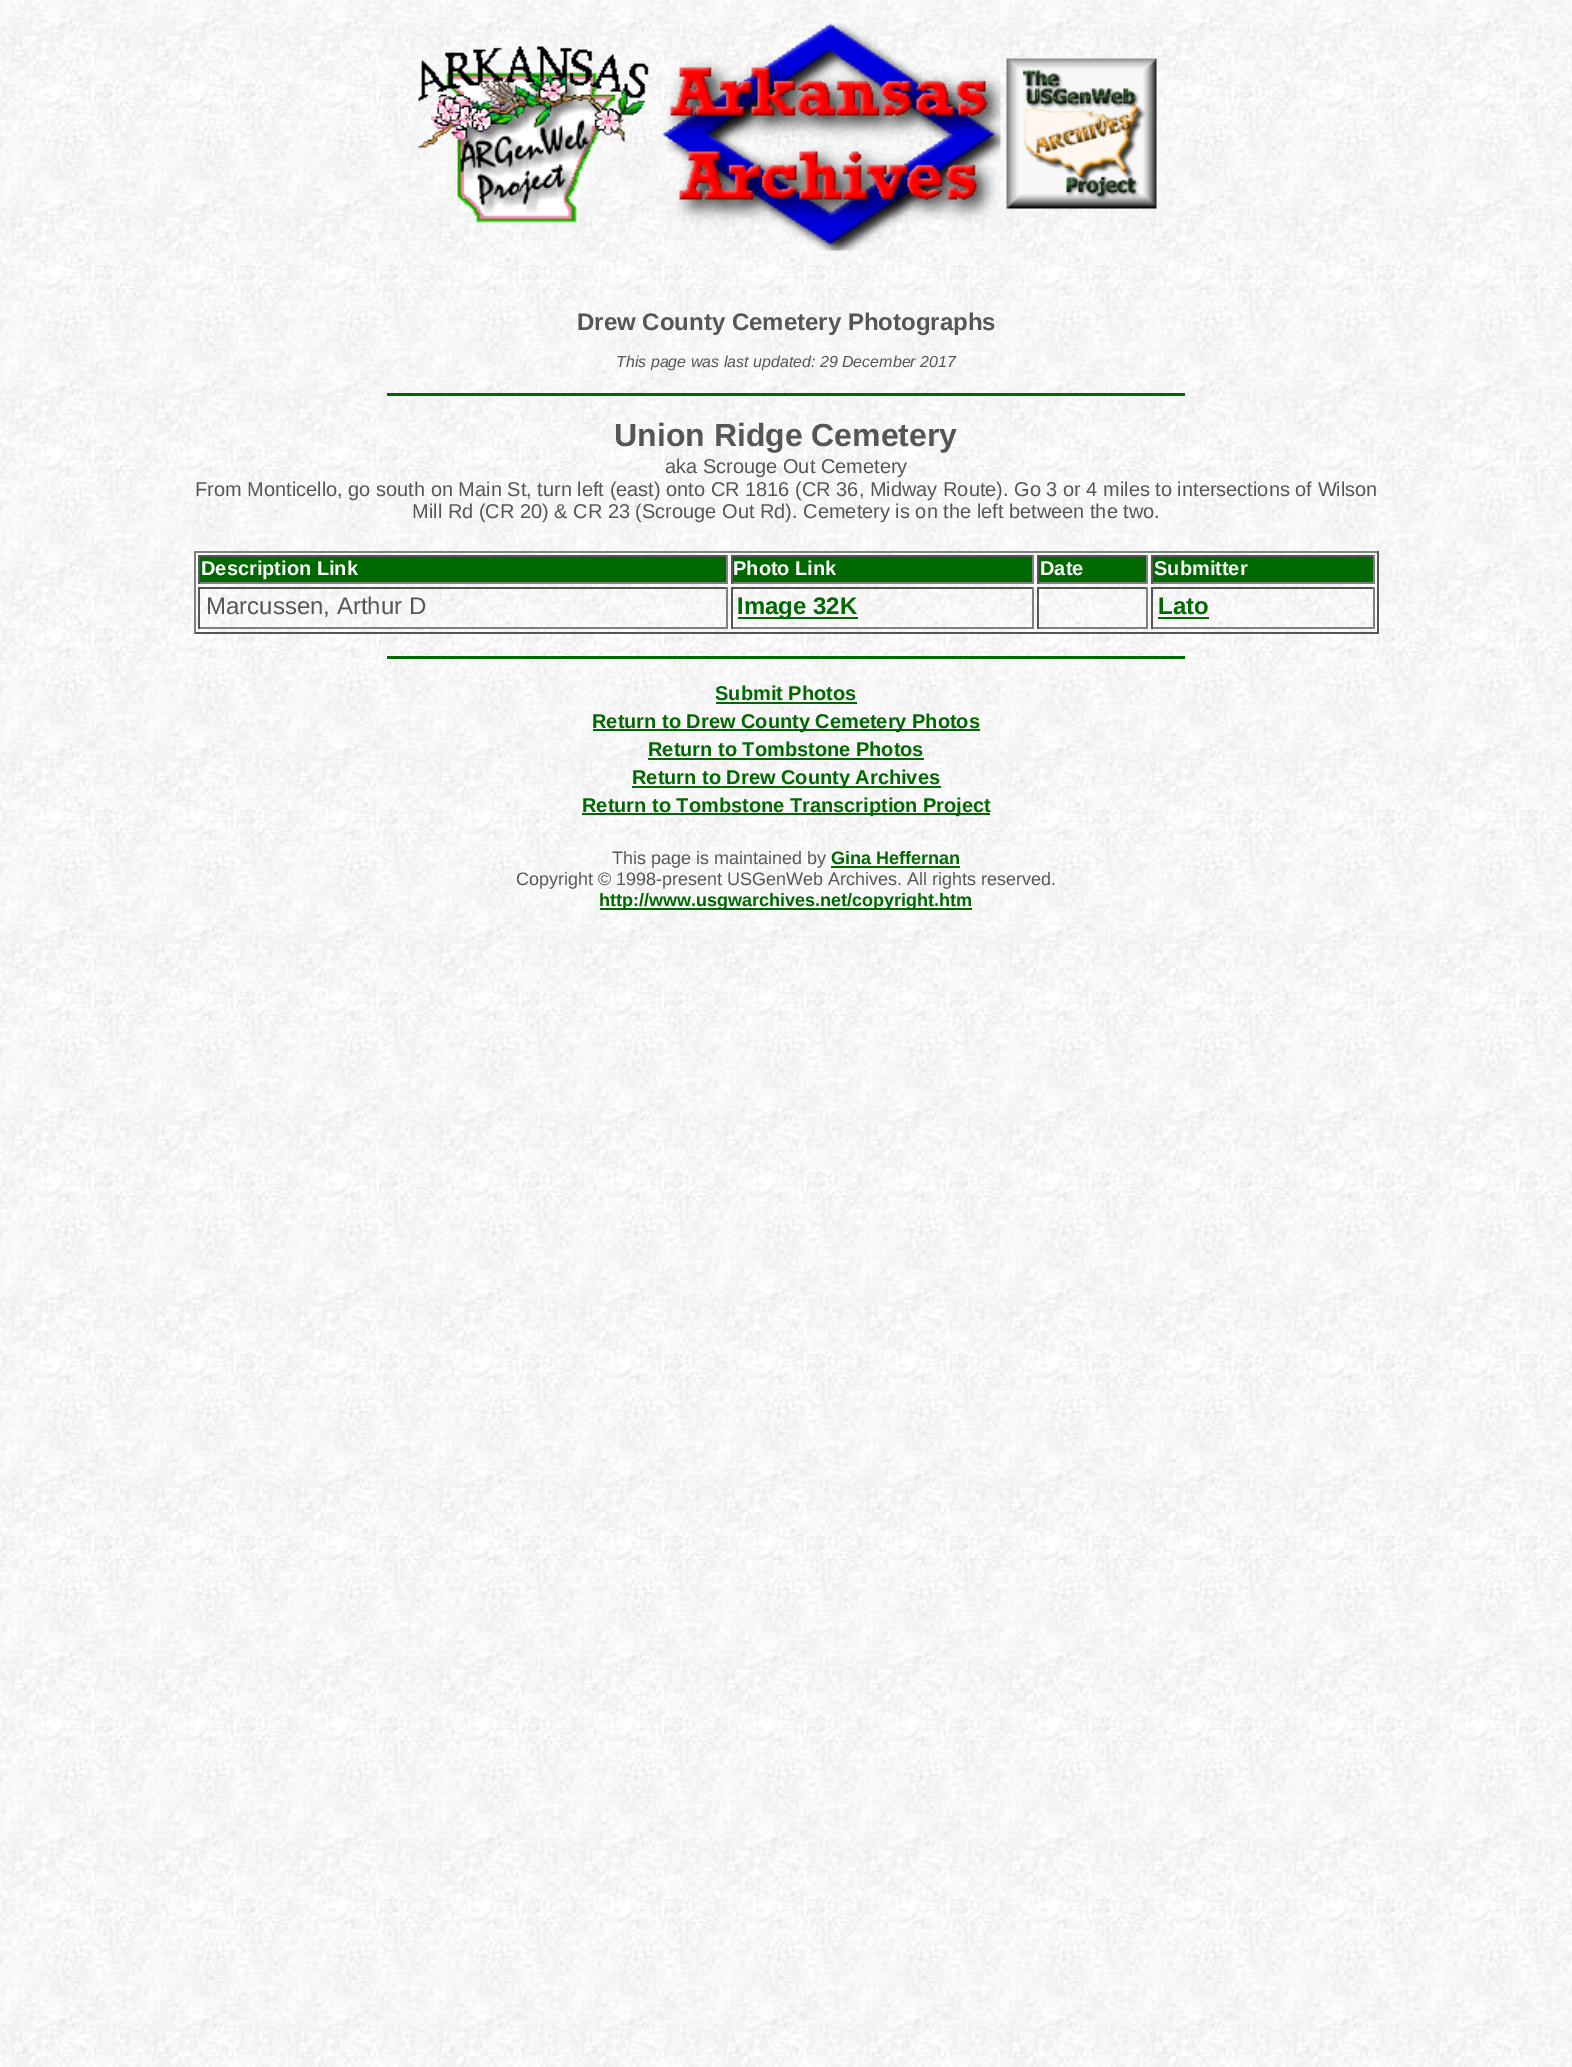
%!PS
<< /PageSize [1572 2067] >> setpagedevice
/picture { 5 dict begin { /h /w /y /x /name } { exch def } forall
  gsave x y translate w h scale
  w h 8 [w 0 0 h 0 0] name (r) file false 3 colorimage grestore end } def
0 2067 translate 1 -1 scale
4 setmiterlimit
1 setgray
0 0 1572 2067 rectfill
(img1.rgb) 0 0 1572 2067 picture
(img2.rgb) 418 46 231 177 picture
(img3.rgb) 662 23 339 228 picture
(img4.rgb) 1006 58 151 151 picture
/LiberationSans-Bold [24 0 0 -24 0 0] selectfont
0.337 setgray
577 330 moveto (Drew County Cemetery Photographs) show
/LiberationSans-Italic [16 0 0 -16 0 0] selectfont
616 367 moveto (This page was last updated: 29 December 2017) show
0 0.408 0 setrgbcolor
387 393 798 3 rectfill
/LiberationSans-Bold [32 0 0 -32 0 0] selectfont
0.337 setgray
614 446 moveto (Union Ridge Cemetery) show
/LiberationSans-Regular [20 0 0 -20 0 0] selectfont
665 473 moveto (aka Scrouge Out Cemetery) show
195 496 moveto (From Monticello, go south on Main St, turn left \(east\) onto CR 1816 \(CR 36, Midway Route\). Go 3 or 4 miles to intersections of Wilson) show
412 518 moveto (Mill Rd \(CR 20\) & CR 23 \(Scrouge Out Rd\). Cemetery is on the left between the two.) show
0.502 setgray
194 551 1185 2 rectfill
0.333 setgray
1377 551 2 82 rectfill
194 632 1185 2 rectfill
0.502 setgray
194 551 2 82 rectfill
0 0.408 0 setrgbcolor
200 557 526 25 rectfill
0.333 setgray
198 555 530 2 rectfill
0.502 setgray
726 555 2 29 rectfill
198 582 530 2 rectfill
0.333 setgray
198 555 2 29 rectfill
/LiberationSans-Bold [20 0 0 -20 0 0] selectfont
1 setgray
201 575 moveto (Description Link) show
0 0.408 0 setrgbcolor
733 557 299 25 rectfill
0.333 setgray
731 555 303 2 rectfill
0.502 setgray
1032 555 2 29 rectfill
731 582 303 2 rectfill
0.333 setgray
731 555 2 29 rectfill
1 setgray
733 575 moveto (Photo Link) show
0 0.408 0 setrgbcolor
1039 557 107 25 rectfill
0.333 setgray
1037 555 111 2 rectfill
0.502 setgray
1146 555 2 29 rectfill
1037 582 111 2 rectfill
0.333 setgray
1037 555 2 29 rectfill
1 setgray
1040 575 moveto (Date) show
0 0.408 0 setrgbcolor
1153 557 220 25 rectfill
0.333 setgray
1151 555 223 2 rectfill
0.502 setgray
1373 555 2 29 rectfill
1151 582 223 2 rectfill
0.333 setgray
1151 555 2 29 rectfill
1 setgray
1154 575 moveto (Submitter) show
0.333 setgray
198 587 530 2 rectfill
0.502 setgray
726 587 2 42 rectfill
198 627 530 2 rectfill
0.333 setgray
198 587 2 42 rectfill
/LiberationSans-Regular [24 0 0 -24 0 0] selectfont
0.337 setgray
206 614 moveto (Marcussen, Arthur D) show
0.333 setgray
731 587 303 2 rectfill
0.502 setgray
1032 587 2 42 rectfill
731 627 303 2 rectfill
0.333 setgray
731 587 2 42 rectfill
0 0.408 0 setrgbcolor
738 617 120 2 rectfill
/LiberationSans-Bold [24 0 0 -24 0 0] selectfont
737 614 moveto (Image 32K) show
0.333 setgray
1037 587 111 2 rectfill
0.502 setgray
1146 587 2 42 rectfill
1037 627 111 2 rectfill
0.333 setgray
1037 587 2 42 rectfill
1151 587 223 2 rectfill
0.502 setgray
1373 587 2 42 rectfill
1151 627 223 2 rectfill
0.333 setgray
1151 587 2 42 rectfill
0 0.408 0 setrgbcolor
1158 614 moveto (Lato) show
1158 617 51 2 rectfill
387 656 798 3 rectfill
/LiberationSans-Bold [20 0 0 -20 0 0] selectfont
715 700 moveto (Submit Photos) show
716 702 141 2 rectfill
593 729 387 2 rectfill
592 728 moveto (Return to Drew County Cemetery Photos) show
648 756 moveto (Return to Tombstone Photos) show
648 758 276 2 rectfill
632 786 309 2 rectfill
632 784 moveto (Return to Drew County Archives) show
582 813 408 2 rectfill
582 812 moveto (Return to Tombstone Transcription Project) show
/LiberationSans-Regular [18 0 0 -18 0 0] selectfont
0.337 setgray
612 864 moveto (This page is maintained by) show
/LiberationSans-Bold [18 0 0 -18 0 0] selectfont
0 0.408 0 setrgbcolor
831 864 moveto (Gina Heffernan) show
831 866 129 2 rectfill
/LiberationSans-Regular [18 0 0 -18 0 0] selectfont
0.337 setgray
516 885 moveto (Copyright © 1998-present USGenWeb Archives. All rights reserved.) show
0 0.408 0 setrgbcolor
600 908 372 2 rectfill
/LiberationSans-Bold [18 0 0 -18 0 0] selectfont
599 906 moveto (http://www.usgwarchives.net/copyright.htm) show
showpage
